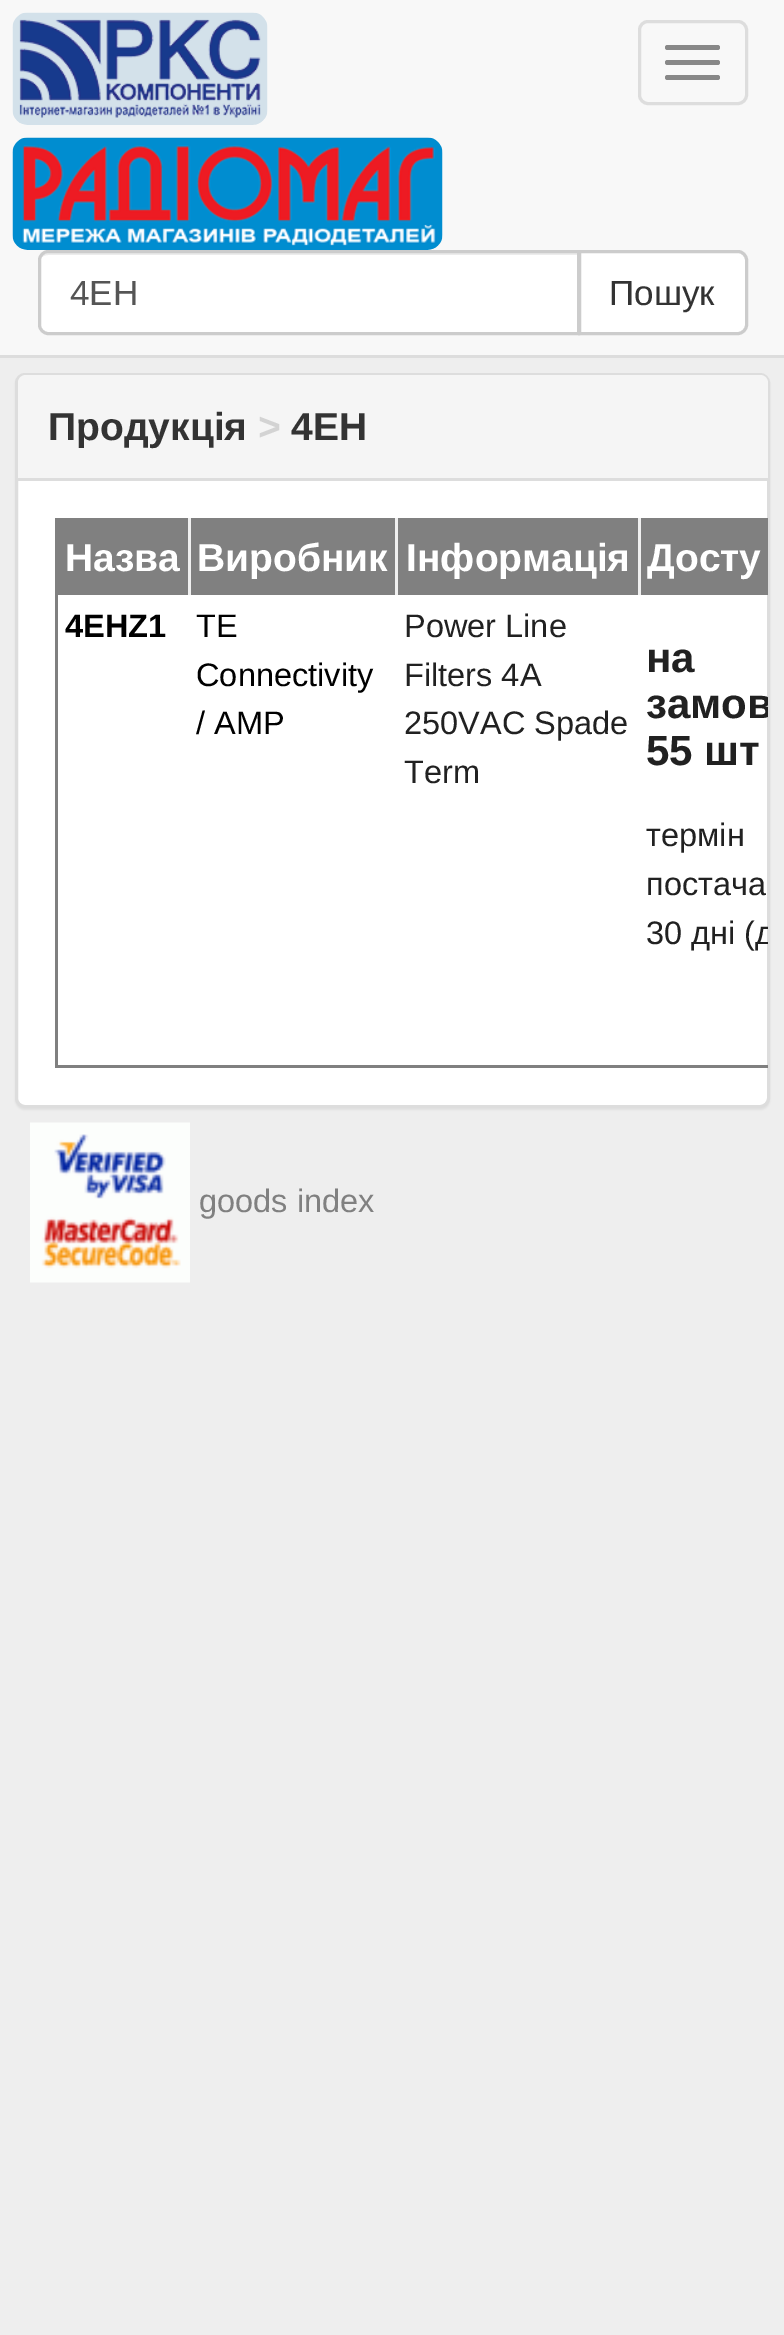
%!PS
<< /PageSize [784 2335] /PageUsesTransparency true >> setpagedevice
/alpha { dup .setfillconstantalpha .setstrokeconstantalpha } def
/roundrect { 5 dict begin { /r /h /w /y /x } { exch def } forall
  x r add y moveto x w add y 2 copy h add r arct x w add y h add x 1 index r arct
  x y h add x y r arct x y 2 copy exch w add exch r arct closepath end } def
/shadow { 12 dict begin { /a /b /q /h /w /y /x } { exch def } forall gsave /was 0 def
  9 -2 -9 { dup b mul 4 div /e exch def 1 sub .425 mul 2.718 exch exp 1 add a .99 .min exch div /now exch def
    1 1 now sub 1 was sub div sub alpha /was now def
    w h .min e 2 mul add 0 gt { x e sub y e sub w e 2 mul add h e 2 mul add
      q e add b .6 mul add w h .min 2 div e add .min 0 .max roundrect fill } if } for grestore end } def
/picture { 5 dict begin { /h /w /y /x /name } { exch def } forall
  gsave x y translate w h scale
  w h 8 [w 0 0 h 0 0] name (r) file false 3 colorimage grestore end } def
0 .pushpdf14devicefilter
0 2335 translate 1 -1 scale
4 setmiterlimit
0.933 setgray
0 0 784 2335 rectfill
0.973 setgray
0 0 784 355 rectfill
0.867 setgray
0 355 784 3 rectfill
(img1.rgb) 12 12 256 113 picture
3 setlinewidth
639.5 21.5 107 82 8.5 roundrect stroke
0.533 setgray
665 45 55 5 2.5 roundrect fill
665 60 55 5 2.5 roundrect fill
665 75 55 5 2.5 roundrect fill
(img2.rgb) 12 137 431 113 picture
1 setgray
newpath 48 250 moveto 580 250 lineto 580 335 lineto 48 335 lineto 42.5 335 38 330.5 38 325 curveto 38 260 lineto 38 254.5 42.5 250 48 250 curveto closepath fill
0.925 setgray
newpath 48 255 moveto 578 255 lineto 578 253 lineto 48 253 lineto 43 253 40 257 40 262 curveto 40 258 43 255 48 255 curveto closepath fill
0.8 setgray
newpath 48 251.5 moveto 578.5 251.5 lineto 578.5 333.5 lineto 48 333.5 lineto 43.5 333.5 39.5 329.5 39.5 325 curveto 39.5 260 lineto 39.5 255.5 43.5 251.5 48 251.5 curveto closepath stroke
/LiberationSans-Regular [35 0 0 -35 0 0] selectfont
0.333 setgray
70 305 moveto (4EH) show
1 setgray
newpath 579.5 251.5 moveto 738 251.5 lineto 742.5 251.5 746.5 255.5 746.5 260 curveto 746.5 325 lineto 746.5 329.5 742.5 333.5 738 333.5 curveto 579.5 333.5 lineto closepath gsave fill grestore
0.8 setgray
stroke
0.2 setgray
609 305 moveto (Пошук) show
0 setgray
15 375 755 735 10 1 0.05 shadow
1 setgray
16.5 374.5 752 732 8.5 roundrect gsave fill grestore
0.867 setgray
stroke
0.961 setgray
newpath 26 375 moveto 760 375 lineto 764.5 375 768 378.5 768 383 curveto 768 480 lineto 18 480 lineto 18 383 lineto 18 378.5 21.5 375 26 375 curveto closepath fill
0.867 setgray
18 478 750 3 rectfill
/LiberationSans-Bold [39 0 0 -39 0 0] selectfont
0.2 setgray
48 440 moveto (Продукція) show
0.827 setgray
258 440 moveto (>) show
0.2 setgray
291 440 moveto (4EH) show
0.502 setgray
55 518 713 3 rectfill
55 1065 713 3 rectfill
55 518 3 550 rectfill
58 521 130 74 rectfill
0.941 setgray
188 518 3 77 rectfill
1 setgray
65 571 moveto (Назва) show
0.502 setgray
191 521 204 74 rectfill
0.941 setgray
395 518 3 77 rectfill
1 setgray
197 571 moveto (Виробник) show
0.502 setgray
398 521 240 74 rectfill
0.941 setgray
638 518 3 77 rectfill
1 setgray
406 571 moveto (Інформація) show
0.502 setgray
641 521 127 74 rectfill
1 setgray
647 571 moveto (Досту) show
/LiberationSans-Bold [32.5 0 0 -32.5 0 0] selectfont
0 setgray
65 637 moveto (4EHZ1) show
/LiberationSans-Regular [32.5 0 0 -32.5 0 0] selectfont
196 637 moveto (TE) show
196 686 moveto (Connectivity) show
196 734 moveto (/ AMP) show
0.129 setgray
404 637 moveto (Power Line) show
404 686 moveto (Filters 4A) show
404 734 moveto (250VAC Spade) show
404 783 moveto (Term) show
/LiberationSans-Bold [42 0 0 -42 0 0] selectfont
646 672 moveto (на) show
gsave
18 480 750 625 rectclip
646 718 moveto (замов) show
grestore
646 765 moveto (55 шт) show
/LiberationSans-Regular [32.5 0 0 -32.5 0 0] selectfont
646 846 moveto (термін) show
646 895 moveto (постача) show
gsave
18 480 750 625 rectclip
646 944 moveto (30 дні \(д) show
grestore
(img3.rgb) 30 1122 160 161 picture
0.502 setgray
199 1212 moveto (goods index) show
.poppdf14devicefilter showpage
